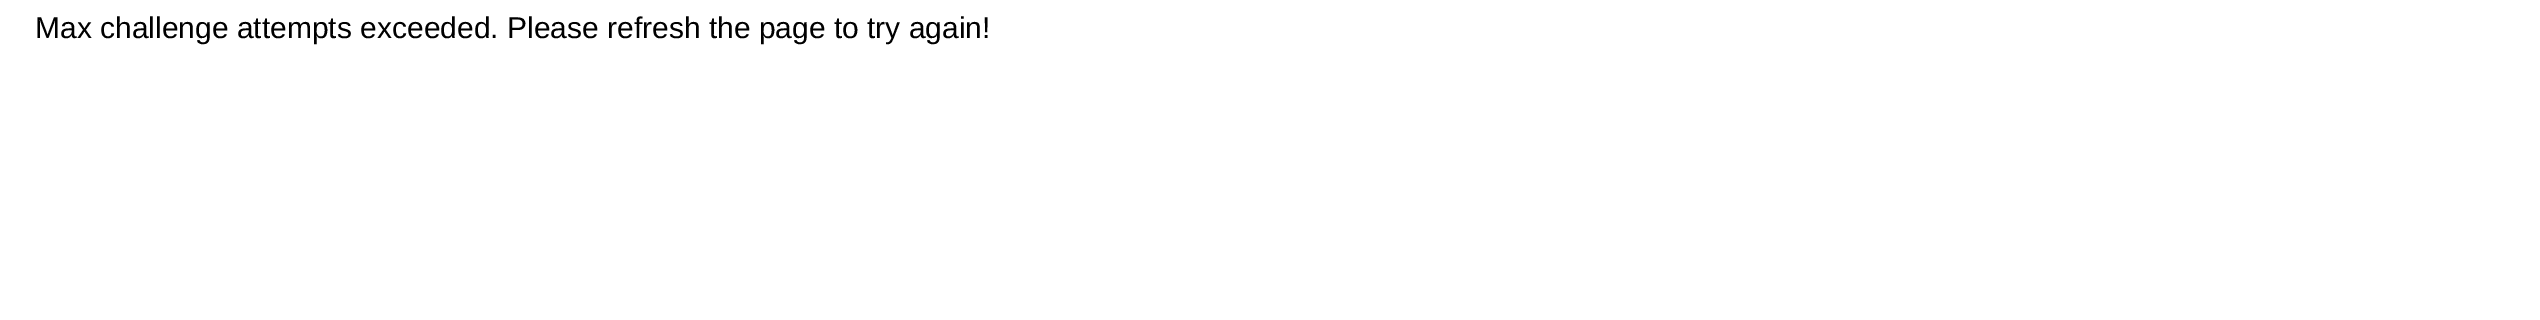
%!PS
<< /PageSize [2540 320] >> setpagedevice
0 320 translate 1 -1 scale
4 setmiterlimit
1 setgray
0 0 2540 320 rectfill
/LiberationSans-Regular [30 0 0 -30 0 0] selectfont
0 setgray
35 38 moveto (Max challenge attempts exceeded. Please refresh the page to try again!) show
showpage
